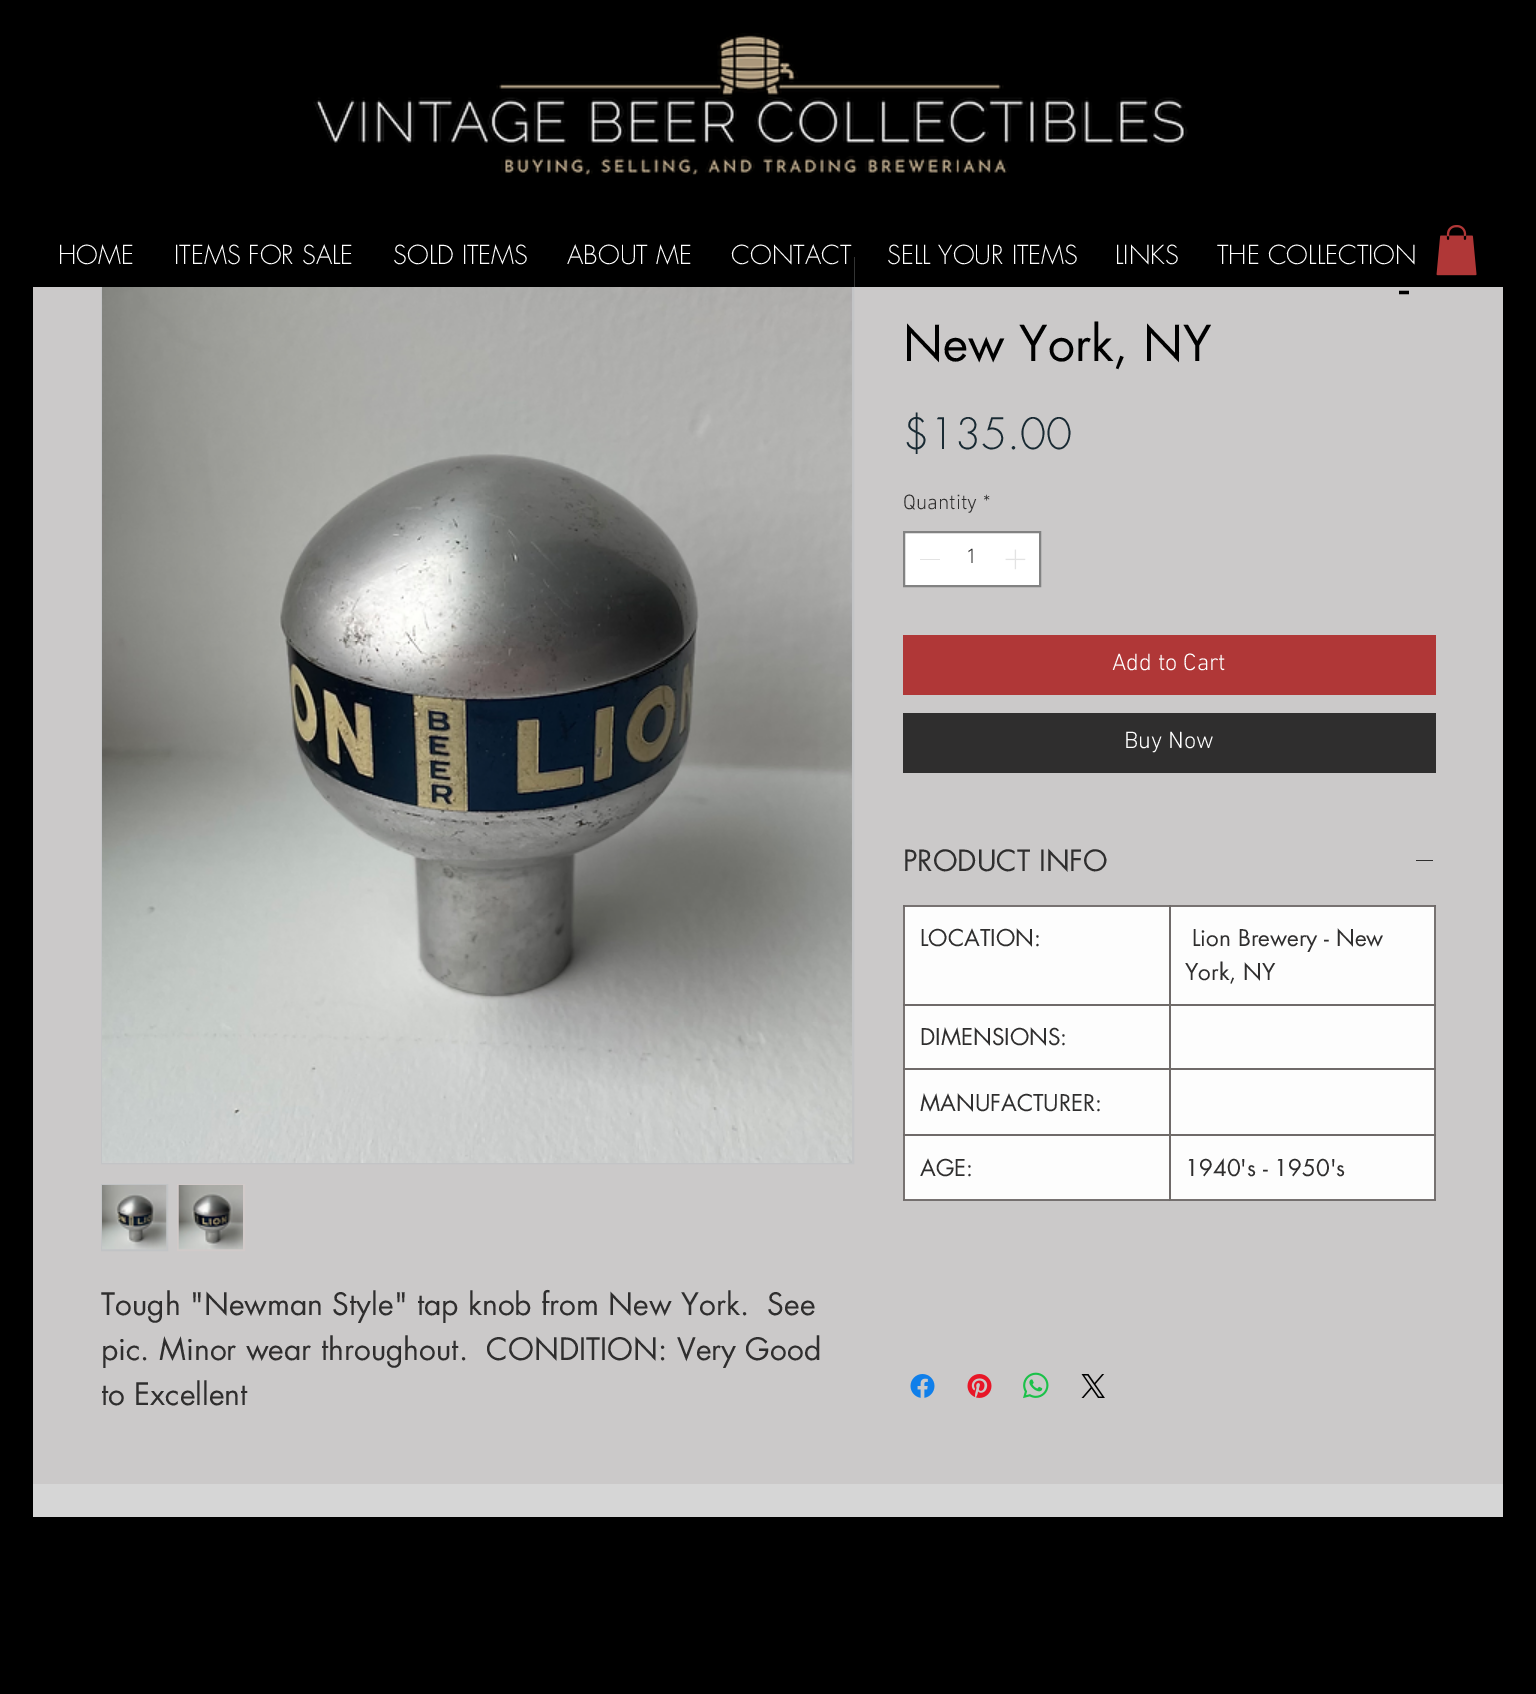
%!PS
<< /PageSize [1536 1694] >> setpagedevice
/picture { 5 dict begin { /h /w /y /x /name } { exch def } forall
  gsave x y translate w h scale
  w h 8 [w 0 0 h 0 0] name (r) file false 3 colorimage grestore end } def
0 1694 translate 1 -1 scale
4 setmiterlimit
0 setgray
0 0 1536 1694 rectfill
(img1.rgb) 313 33 875 143 picture
0.796 0.788 0.788 setrgbcolor
33 287 1470 1197 rectfill
0.765 0.769 0.776 setrgbcolor
2 setlinewidth
102 258 751 905 rectstroke
0 setgray
101 257 753 30 rectfill
/futura-Light [25.5 0 0 -25.5 0 0] selectfont
1 setgray
58 264 moveto (HOME) show
174 264 moveto (ITEMS FOR SALE) show
393 264 moveto (SOLD ITEMS) show
567 264 moveto (ABOUT ME) show
731 264 moveto (CONTACT) show
887 264 moveto (SELL YOUR ITEMS) show
1115 264 moveto (LINKS) show
1217 264 moveto (THE COLLECTION) show
(img2.rgb) 1436 225 41 51 picture
0.455 0.435 0.431 setrgbcolor
903 1200 533 1 rectfill
0.431 0.412 0.408 setrgbcolor
1169 1199 1 2 rectfill
/futura-Regular [48 0 0 -48 0 0] selectfont
0 setgray
1399 304 moveto (-) show
903 361 moveto (New York, NY) show
/futura-Light [42 0 0 -42 0 0] selectfont
0.098 0.165 0.2 setrgbcolor
903 449 moveto ($135.00) show
/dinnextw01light-Light [21 0 0 -21 0 0] selectfont
0.184 0.18 0.18 setrgbcolor
903 509 moveto (Quantity) show
983 509 moveto (*) show
1 setgray
newpath 904 532 moveto 1040 532 lineto 1040 586 lineto 904 586 lineto closepath gsave fill grestore
0.51 setgray
stroke
0.89 setgray
920 559 20 1 rectfill
0.184 0.18 0.18 setrgbcolor
966 563 moveto (1) show
(img3.rgb) 1005 549 21 21 picture
0.69 0.216 0.216 setrgbcolor
903 635 533 60 rectfill
/dinnextw01light-Light [24 0 0 -24 0 0] selectfont
1 setgray
1112 670 moveto (Add to Cart) show
0.184 0.18 0.18 setrgbcolor
903 713 533 60 rectfill
1 setgray
1124 748 moveto (Buy Now) show
/futura-Regular [28.5 0 0 -28.5 0 0] selectfont
0.184 0.18 0.18 setrgbcolor
903 871 moveto (PRODUCT INFO) show
1416 860 17 1 rectfill
0.992 setgray
905 907 529 292 rectfill
0.467 0.447 0.443 setrgbcolor
903 905 2 295 rectfill
903 905 267 2 rectfill
0.435 0.416 0.412 setrgbcolor
903 905 2 2 rectfill
1169 905 2 100 rectfill
0.467 0.447 0.443 setrgbcolor
1434 905 2 231 rectfill
0.435 0.416 0.412 setrgbcolor
903 1004 267 2 rectfill
1169 1004 2 66 rectfill
903 1068 267 2 rectfill
1169 1068 2 68 rectfill
0.467 0.447 0.443 setrgbcolor
903 1199 267 1 rectfill
0.435 0.416 0.412 setrgbcolor
903 1199 2 1 rectfill
903 1134 267 2 rectfill
1169 1134 2 66 rectfill
0.467 0.447 0.443 setrgbcolor
1169 1199 267 1 rectfill
0.431 0.412 0.408 setrgbcolor
1169 1199 2 1 rectfill
0.467 0.447 0.443 setrgbcolor
1434 1134 2 66 rectfill
0.435 0.416 0.412 setrgbcolor
1434 1199 2 1 rectfill
/futura-Regular [22.5 0 0 -22.5 0 0] selectfont
0.184 0.18 0.18 setrgbcolor
920 946 moveto (LOCATION:) show
0.467 0.447 0.443 setrgbcolor
1169 905 267 2 rectfill
0.431 0.412 0.408 setrgbcolor
1169 905 2 2 rectfill
0.435 0.416 0.412 setrgbcolor
1434 905 2 2 rectfill
0.184 0.18 0.18 setrgbcolor
1192 946 moveto (Lion Brewery - New) show
1185 980 moveto (York, NY) show
0.435 0.416 0.412 setrgbcolor
1169 1004 267 2 rectfill
0.184 0.18 0.18 setrgbcolor
920 1045 moveto (DIMENSIONS:) show
0.435 0.416 0.412 setrgbcolor
1169 1068 267 2 rectfill
0.184 0.18 0.18 setrgbcolor
920 1111 moveto (MANUFACTURER:) show
920 1176 moveto (AGE:) show
0.435 0.416 0.412 setrgbcolor
1169 1134 267 2 rectfill
0.184 0.18 0.18 setrgbcolor
1185 1176 moveto (1940's - 1950's) show
(img4.rgb) 910 1374 25 24 picture
(img5.rgb) 967 1374 25 24 picture
(img6.rgb) 1023 1372 26 27 picture
(img7.rgb) 1081 1374 24 24 picture
(img8.rgb) 102 287 750 876 picture
0.757 0.765 0.773 setrgbcolor
102 1185 65 65 rectstroke
(img9.rgb) 102 1185 65 65 picture
0.82 0.792 0.788 setrgbcolor
178 1185 66 65 rectstroke
(img10.rgb) 178 1185 65 65 picture
gsave
101 1281 750 135 rectclip
/futura-Regular [30 0 0 -30 0 0] selectfont
0.184 0.18 0.18 setrgbcolor
101 1315 moveto (Tough "Newman Style" tap knob from New York.  See) show
grestore
/futura-Regular [30 0 0 -30 0 0] selectfont
0.184 0.18 0.18 setrgbcolor
101 1360 moveto (pic. Minor wear throughout.  CONDITION: Very Good) show
101 1405 moveto (to Excellent) show
0.839 setgray
33 1484 1470 33 rectfill
showpage
